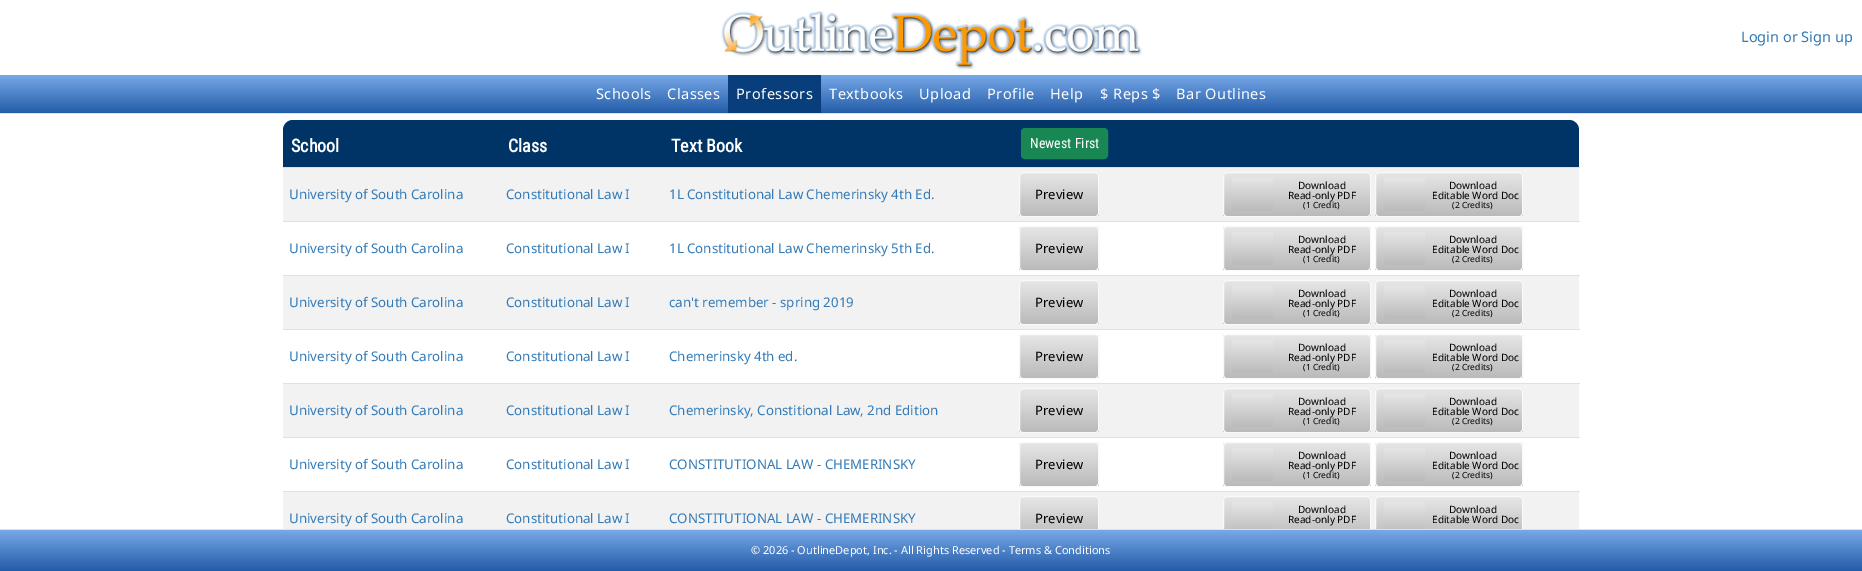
%!PS
<< /PageSize [1862 571] >> setpagedevice
/roundrect { 5 dict begin { /r /h /w /y /x } { exch def } forall
  x r add y moveto x w add y 2 copy h add r arct x w add y h add x 1 index r arct
  x y h add x y r arct x y 2 copy exch w add exch r arct closepath end } def
/picture { 5 dict begin { /h /w /y /x /name } { exch def } forall
  gsave x y translate w h scale
  w h 8 [w 0 0 h 0 0] name (r) file false 3 colorimage grestore end } def
0 571 translate 1 -1 scale
4 setmiterlimit
1 setgray
0 0 1862 571 rectfill
(img1.rgb) 721 11 421 59 picture
/NotoSans-Regular [14.5 0 0 -14.5 0 0] selectfont
0.2 0.478 0.718 setrgbcolor
1741 42 moveto (Login or Sign up) show
gsave newpath 0 75 moveto 1862 75 lineto 1862 113 lineto 0 113 lineto closepath clip newpath
<< /ShadingType 2 /ColorSpace /DeviceRGB /Coords [931 75 931 113] /Extend [true true] /Function << /FunctionType 2 /Domain [0 1] /C0 [0.471 0.659 0.91] /C1 [0.137 0.361 0.659] /N 1 >> >> shfill grestore
0.871 0.886 0.902 setrgbcolor
0 113 1862 1 rectfill
1 setgray
596 99 moveto 0.5 0 (Schools) ashow
667 99 moveto 0.5 0 (Classes) ashow
0.031 0.243 0.486 setrgbcolor
728 75 93 38 rectfill
1 setgray
736 99 moveto 0.5 0 (Professors) ashow
829 99 moveto 0.5 0 (Textbooks) ashow
919 99 moveto 0.5 0 (Upload) ashow
987 99 moveto 0.5 0 (Profile) ashow
1050 99 moveto 0.5 0 (Help) ashow
1100 99 moveto 0.5 0 ($ Reps $) ashow
1176 99 moveto 0.5 0 (Bar Outlines) ashow
0 0.2 0.4 setrgbcolor
newpath 1217 120 moveto 1569 120 lineto 1574.5 120 1579 124.5 1579 130 curveto 1579 167 lineto 1217 167 lineto closepath fill
0.871 0.886 0.902 setrgbcolor
283 167 1297 1 rectfill
0 0.2 0.4 setrgbcolor
newpath 293 120 moveto 500 120 lineto 500 167 lineto 283 167 lineto 283 130 lineto 283 124.5 287.5 120 293 120 curveto closepath fill
/RobotoCondensed-Bold [18 0 0 -18 0 0] selectfont
1 setgray
291 152 moveto (School) show
0 0.2 0.4 setrgbcolor
500 120 717 47 rectfill
1 setgray
508 152 moveto (Class) show
671 152 moveto (Text Book) show
0.098 0.529 0.329 setrgbcolor
1021.5 128.5 86 30 3.5 roundrect gsave fill grestore
stroke
/RobotoCondensed-Regular [14 0 0 -14 0 0] selectfont
1 setgray
1030 148 moveto (Newest First) show
0.949 setgray
283 168 1296 53 rectfill
/NotoSans-Regular [13.3 0 0 -13.3 0 0] selectfont
0.2 0.478 0.718 setrgbcolor
289 199 moveto (University of South Carolina) show
506 199 moveto (Constitutional Law I) show
669 199 moveto (1L Constitutional Law Chemerinsky 4th Ed.) show
gsave
1019 172 80 45 4 roundrect clip newpath
gsave newpath 1019 173 moveto 1099 173 lineto 1099 216 lineto 1019 216 lineto closepath clip newpath
<< /ShadingType 2 /ColorSpace /DeviceRGB /Coords [1059 173 1059 216] /Extend [true true] /Function << /FunctionType 2 /Domain [0 1] /C0 [0.902 0.902 0.902] /C1 [0.729 0.729 0.729] /N 1 >> >> shfill grestore
grestore
0.973 0.976 0.98 setrgbcolor
1019.5 172.5 79 44 3.5 roundrect stroke
/NotoSans-Regular [13 0 0 -13 0 0] selectfont
0 setgray
1035 199 moveto (Preview) show
0.871 0.886 0.902 setrgbcolor
283 221 1297 1 rectfill
gsave
1223 172 148 45 4 roundrect clip newpath
gsave newpath 1223 173 moveto 1371 173 lineto 1371 216 lineto 1223 216 lineto closepath clip newpath
<< /ShadingType 2 /ColorSpace /DeviceRGB /Coords [1297 173 1297 216] /Extend [true true] /Function << /FunctionType 2 /Domain [0 1] /C0 [0.902 0.902 0.902] /C1 [0.729 0.729 0.729] /N 1 >> >> shfill grestore
grestore
0.973 0.976 0.98 setrgbcolor
1223.5 172.5 147 44 3.5 roundrect stroke
gsave newpath 1232 178 moveto 1273 178 lineto 1273 206 lineto 1273 209 1271 211 1268 211 curveto 1237 211 lineto 1234 211 1232 209 1232 206 curveto closepath clip newpath
<< /ShadingType 2 /ColorSpace /DeviceRGB /Coords [1253 178 1253 211] /Extend [true true] /Function << /FunctionType 2 /Domain [0 1] /C0 [0.902 0.902 0.902] /C1 [0.729 0.729 0.729] /N 1 >> >> shfill grestore
/NotoSans-Regular [10 0 0 -10 0 0] selectfont
0 setgray
1298 189 moveto (Download) show
1288 199 moveto (Read-only PDF) show
/NotoSans-Regular [8.5 0 0 -8.5 0 0] selectfont
1303 208 moveto (\(1 Credit\)) show
gsave
1375 172 148 45 4 roundrect clip newpath
gsave newpath 1375 173 moveto 1523 173 lineto 1523 216 lineto 1375 216 lineto closepath clip newpath
<< /ShadingType 2 /ColorSpace /DeviceRGB /Coords [1449 173 1449 216] /Extend [true true] /Function << /FunctionType 2 /Domain [0 1] /C0 [0.902 0.902 0.902] /C1 [0.729 0.729 0.729] /N 1 >> >> shfill grestore
grestore
0.973 0.976 0.98 setrgbcolor
1375.5 172.5 147 44 3.5 roundrect stroke
gsave newpath 1384 178 moveto 1425 178 lineto 1425 206 lineto 1425 209 1423 211 1420 211 curveto 1389 211 lineto 1386 211 1384 209 1384 206 curveto closepath clip newpath
<< /ShadingType 2 /ColorSpace /DeviceRGB /Coords [1405 178 1405 211] /Extend [true true] /Function << /FunctionType 2 /Domain [0 1] /C0 [0.902 0.902 0.902] /C1 [0.729 0.729 0.729] /N 1 >> >> shfill grestore
/NotoSans-Regular [10 0 0 -10 0 0] selectfont
0 setgray
1449 189 moveto (Download) show
1432 199 moveto (Editable Word Doc) show
/NotoSans-Regular [8.5 0 0 -8.5 0 0] selectfont
1452 208 moveto (\(2 Credits\)) show
/NotoSans-Regular [13.3 0 0 -13.3 0 0] selectfont
0.2 0.478 0.718 setrgbcolor
289 253 moveto (University of South Carolina) show
506 253 moveto (Constitutional Law I) show
669 253 moveto (1L Constitutional Law Chemerinsky 5th Ed.) show
gsave
1019 226 80 45 4 roundrect clip newpath
gsave newpath 1019 227 moveto 1099 227 lineto 1099 270 lineto 1019 270 lineto closepath clip newpath
<< /ShadingType 2 /ColorSpace /DeviceRGB /Coords [1059 227 1059 270] /Extend [true true] /Function << /FunctionType 2 /Domain [0 1] /C0 [0.902 0.902 0.902] /C1 [0.729 0.729 0.729] /N 1 >> >> shfill grestore
grestore
0.973 0.976 0.98 setrgbcolor
1019.5 226.5 79 44 3.5 roundrect stroke
/NotoSans-Regular [13 0 0 -13 0 0] selectfont
0 setgray
1035 253 moveto (Preview) show
0.871 0.886 0.902 setrgbcolor
283 275 1297 1 rectfill
gsave
1223 226 148 45 4 roundrect clip newpath
gsave newpath 1223 227 moveto 1371 227 lineto 1371 270 lineto 1223 270 lineto closepath clip newpath
<< /ShadingType 2 /ColorSpace /DeviceRGB /Coords [1297 227 1297 270] /Extend [true true] /Function << /FunctionType 2 /Domain [0 1] /C0 [0.902 0.902 0.902] /C1 [0.729 0.729 0.729] /N 1 >> >> shfill grestore
grestore
0.973 0.976 0.98 setrgbcolor
1223.5 226.5 147 44 3.5 roundrect stroke
gsave newpath 1232 232 moveto 1273 232 lineto 1273 260 lineto 1273 263 1271 265 1268 265 curveto 1237 265 lineto 1234 265 1232 263 1232 260 curveto closepath clip newpath
<< /ShadingType 2 /ColorSpace /DeviceRGB /Coords [1253 232 1253 265] /Extend [true true] /Function << /FunctionType 2 /Domain [0 1] /C0 [0.902 0.902 0.902] /C1 [0.729 0.729 0.729] /N 1 >> >> shfill grestore
/NotoSans-Regular [10 0 0 -10 0 0] selectfont
0 setgray
1298 243 moveto (Download) show
1288 253 moveto (Read-only PDF) show
/NotoSans-Regular [8.5 0 0 -8.5 0 0] selectfont
1303 262 moveto (\(1 Credit\)) show
gsave
1375 226 148 45 4 roundrect clip newpath
gsave newpath 1375 227 moveto 1523 227 lineto 1523 270 lineto 1375 270 lineto closepath clip newpath
<< /ShadingType 2 /ColorSpace /DeviceRGB /Coords [1449 227 1449 270] /Extend [true true] /Function << /FunctionType 2 /Domain [0 1] /C0 [0.902 0.902 0.902] /C1 [0.729 0.729 0.729] /N 1 >> >> shfill grestore
grestore
0.973 0.976 0.98 setrgbcolor
1375.5 226.5 147 44 3.5 roundrect stroke
gsave newpath 1384 232 moveto 1425 232 lineto 1425 260 lineto 1425 263 1423 265 1420 265 curveto 1389 265 lineto 1386 265 1384 263 1384 260 curveto closepath clip newpath
<< /ShadingType 2 /ColorSpace /DeviceRGB /Coords [1405 232 1405 265] /Extend [true true] /Function << /FunctionType 2 /Domain [0 1] /C0 [0.902 0.902 0.902] /C1 [0.729 0.729 0.729] /N 1 >> >> shfill grestore
/NotoSans-Regular [10 0 0 -10 0 0] selectfont
0 setgray
1449 243 moveto (Download) show
1432 253 moveto (Editable Word Doc) show
/NotoSans-Regular [8.5 0 0 -8.5 0 0] selectfont
1452 262 moveto (\(2 Credits\)) show
0.949 setgray
283 276 1296 53 rectfill
/NotoSans-Regular [13.3 0 0 -13.3 0 0] selectfont
0.2 0.478 0.718 setrgbcolor
289 307 moveto (University of South Carolina) show
506 307 moveto (Constitutional Law I) show
669 307 moveto (can't remember - spring 2019) show
gsave
1019 280 80 45 4 roundrect clip newpath
gsave newpath 1019 281 moveto 1099 281 lineto 1099 324 lineto 1019 324 lineto closepath clip newpath
<< /ShadingType 2 /ColorSpace /DeviceRGB /Coords [1059 281 1059 324] /Extend [true true] /Function << /FunctionType 2 /Domain [0 1] /C0 [0.902 0.902 0.902] /C1 [0.729 0.729 0.729] /N 1 >> >> shfill grestore
grestore
0.973 0.976 0.98 setrgbcolor
1019.5 280.5 79 44 3.5 roundrect stroke
/NotoSans-Regular [13 0 0 -13 0 0] selectfont
0 setgray
1035 307 moveto (Preview) show
0.871 0.886 0.902 setrgbcolor
283 329 1297 1 rectfill
gsave
1223 280 148 45 4 roundrect clip newpath
gsave newpath 1223 281 moveto 1371 281 lineto 1371 324 lineto 1223 324 lineto closepath clip newpath
<< /ShadingType 2 /ColorSpace /DeviceRGB /Coords [1297 281 1297 324] /Extend [true true] /Function << /FunctionType 2 /Domain [0 1] /C0 [0.902 0.902 0.902] /C1 [0.729 0.729 0.729] /N 1 >> >> shfill grestore
grestore
0.973 0.976 0.98 setrgbcolor
1223.5 280.5 147 44 3.5 roundrect stroke
gsave newpath 1232 286 moveto 1273 286 lineto 1273 314 lineto 1273 317 1271 319 1268 319 curveto 1237 319 lineto 1234 319 1232 317 1232 314 curveto closepath clip newpath
<< /ShadingType 2 /ColorSpace /DeviceRGB /Coords [1253 286 1253 319] /Extend [true true] /Function << /FunctionType 2 /Domain [0 1] /C0 [0.902 0.902 0.902] /C1 [0.729 0.729 0.729] /N 1 >> >> shfill grestore
/NotoSans-Regular [10 0 0 -10 0 0] selectfont
0 setgray
1298 297 moveto (Download) show
1288 307 moveto (Read-only PDF) show
/NotoSans-Regular [8.5 0 0 -8.5 0 0] selectfont
1303 316 moveto (\(1 Credit\)) show
gsave
1375 280 148 45 4 roundrect clip newpath
gsave newpath 1375 281 moveto 1523 281 lineto 1523 324 lineto 1375 324 lineto closepath clip newpath
<< /ShadingType 2 /ColorSpace /DeviceRGB /Coords [1449 281 1449 324] /Extend [true true] /Function << /FunctionType 2 /Domain [0 1] /C0 [0.902 0.902 0.902] /C1 [0.729 0.729 0.729] /N 1 >> >> shfill grestore
grestore
0.973 0.976 0.98 setrgbcolor
1375.5 280.5 147 44 3.5 roundrect stroke
gsave newpath 1384 286 moveto 1425 286 lineto 1425 314 lineto 1425 317 1423 319 1420 319 curveto 1389 319 lineto 1386 319 1384 317 1384 314 curveto closepath clip newpath
<< /ShadingType 2 /ColorSpace /DeviceRGB /Coords [1405 286 1405 319] /Extend [true true] /Function << /FunctionType 2 /Domain [0 1] /C0 [0.902 0.902 0.902] /C1 [0.729 0.729 0.729] /N 1 >> >> shfill grestore
/NotoSans-Regular [10 0 0 -10 0 0] selectfont
0 setgray
1449 297 moveto (Download) show
1432 307 moveto (Editable Word Doc) show
/NotoSans-Regular [8.5 0 0 -8.5 0 0] selectfont
1452 316 moveto (\(2 Credits\)) show
/NotoSans-Regular [13.3 0 0 -13.3 0 0] selectfont
0.2 0.478 0.718 setrgbcolor
289 361 moveto (University of South Carolina) show
506 361 moveto (Constitutional Law I) show
669 361 moveto (Chemerinsky 4th ed.) show
gsave
1019 334 80 45 4 roundrect clip newpath
gsave newpath 1019 335 moveto 1099 335 lineto 1099 378 lineto 1019 378 lineto closepath clip newpath
<< /ShadingType 2 /ColorSpace /DeviceRGB /Coords [1059 335 1059 378] /Extend [true true] /Function << /FunctionType 2 /Domain [0 1] /C0 [0.902 0.902 0.902] /C1 [0.729 0.729 0.729] /N 1 >> >> shfill grestore
grestore
0.973 0.976 0.98 setrgbcolor
1019.5 334.5 79 44 3.5 roundrect stroke
/NotoSans-Regular [13 0 0 -13 0 0] selectfont
0 setgray
1035 361 moveto (Preview) show
0.871 0.886 0.902 setrgbcolor
283 383 1297 1 rectfill
gsave
1223 334 148 45 4 roundrect clip newpath
gsave newpath 1223 335 moveto 1371 335 lineto 1371 378 lineto 1223 378 lineto closepath clip newpath
<< /ShadingType 2 /ColorSpace /DeviceRGB /Coords [1297 335 1297 378] /Extend [true true] /Function << /FunctionType 2 /Domain [0 1] /C0 [0.902 0.902 0.902] /C1 [0.729 0.729 0.729] /N 1 >> >> shfill grestore
grestore
0.973 0.976 0.98 setrgbcolor
1223.5 334.5 147 44 3.5 roundrect stroke
gsave newpath 1232 340 moveto 1273 340 lineto 1273 368 lineto 1273 371 1271 373 1268 373 curveto 1237 373 lineto 1234 373 1232 371 1232 368 curveto closepath clip newpath
<< /ShadingType 2 /ColorSpace /DeviceRGB /Coords [1253 340 1253 373] /Extend [true true] /Function << /FunctionType 2 /Domain [0 1] /C0 [0.902 0.902 0.902] /C1 [0.729 0.729 0.729] /N 1 >> >> shfill grestore
/NotoSans-Regular [10 0 0 -10 0 0] selectfont
0 setgray
1298 351 moveto (Download) show
1288 361 moveto (Read-only PDF) show
/NotoSans-Regular [8.5 0 0 -8.5 0 0] selectfont
1303 370 moveto (\(1 Credit\)) show
gsave
1375 334 148 45 4 roundrect clip newpath
gsave newpath 1375 335 moveto 1523 335 lineto 1523 378 lineto 1375 378 lineto closepath clip newpath
<< /ShadingType 2 /ColorSpace /DeviceRGB /Coords [1449 335 1449 378] /Extend [true true] /Function << /FunctionType 2 /Domain [0 1] /C0 [0.902 0.902 0.902] /C1 [0.729 0.729 0.729] /N 1 >> >> shfill grestore
grestore
0.973 0.976 0.98 setrgbcolor
1375.5 334.5 147 44 3.5 roundrect stroke
gsave newpath 1384 340 moveto 1425 340 lineto 1425 368 lineto 1425 371 1423 373 1420 373 curveto 1389 373 lineto 1386 373 1384 371 1384 368 curveto closepath clip newpath
<< /ShadingType 2 /ColorSpace /DeviceRGB /Coords [1405 340 1405 373] /Extend [true true] /Function << /FunctionType 2 /Domain [0 1] /C0 [0.902 0.902 0.902] /C1 [0.729 0.729 0.729] /N 1 >> >> shfill grestore
/NotoSans-Regular [10 0 0 -10 0 0] selectfont
0 setgray
1449 351 moveto (Download) show
1432 361 moveto (Editable Word Doc) show
/NotoSans-Regular [8.5 0 0 -8.5 0 0] selectfont
1452 370 moveto (\(2 Credits\)) show
0.949 setgray
283 384 1296 53 rectfill
/NotoSans-Regular [13.3 0 0 -13.3 0 0] selectfont
0.2 0.478 0.718 setrgbcolor
289 415 moveto (University of South Carolina) show
506 415 moveto (Constitutional Law I) show
669 415 moveto (Chemerinsky, Constitional Law, 2nd Edition) show
gsave
1019 388 80 45 4 roundrect clip newpath
gsave newpath 1019 389 moveto 1099 389 lineto 1099 432 lineto 1019 432 lineto closepath clip newpath
<< /ShadingType 2 /ColorSpace /DeviceRGB /Coords [1059 389 1059 432] /Extend [true true] /Function << /FunctionType 2 /Domain [0 1] /C0 [0.902 0.902 0.902] /C1 [0.729 0.729 0.729] /N 1 >> >> shfill grestore
grestore
0.973 0.976 0.98 setrgbcolor
1019.5 388.5 79 44 3.5 roundrect stroke
/NotoSans-Regular [13 0 0 -13 0 0] selectfont
0 setgray
1035 415 moveto (Preview) show
0.871 0.886 0.902 setrgbcolor
283 437 1297 1 rectfill
gsave
1223 388 148 45 4 roundrect clip newpath
gsave newpath 1223 389 moveto 1371 389 lineto 1371 432 lineto 1223 432 lineto closepath clip newpath
<< /ShadingType 2 /ColorSpace /DeviceRGB /Coords [1297 389 1297 432] /Extend [true true] /Function << /FunctionType 2 /Domain [0 1] /C0 [0.902 0.902 0.902] /C1 [0.729 0.729 0.729] /N 1 >> >> shfill grestore
grestore
0.973 0.976 0.98 setrgbcolor
1223.5 388.5 147 44 3.5 roundrect stroke
gsave newpath 1232 394 moveto 1273 394 lineto 1273 422 lineto 1273 425 1271 427 1268 427 curveto 1237 427 lineto 1234 427 1232 425 1232 422 curveto closepath clip newpath
<< /ShadingType 2 /ColorSpace /DeviceRGB /Coords [1253 394 1253 427] /Extend [true true] /Function << /FunctionType 2 /Domain [0 1] /C0 [0.902 0.902 0.902] /C1 [0.729 0.729 0.729] /N 1 >> >> shfill grestore
/NotoSans-Regular [10 0 0 -10 0 0] selectfont
0 setgray
1298 405 moveto (Download) show
1288 415 moveto (Read-only PDF) show
/NotoSans-Regular [8.5 0 0 -8.5 0 0] selectfont
1303 424 moveto (\(1 Credit\)) show
gsave
1375 388 148 45 4 roundrect clip newpath
gsave newpath 1375 389 moveto 1523 389 lineto 1523 432 lineto 1375 432 lineto closepath clip newpath
<< /ShadingType 2 /ColorSpace /DeviceRGB /Coords [1449 389 1449 432] /Extend [true true] /Function << /FunctionType 2 /Domain [0 1] /C0 [0.902 0.902 0.902] /C1 [0.729 0.729 0.729] /N 1 >> >> shfill grestore
grestore
0.973 0.976 0.98 setrgbcolor
1375.5 388.5 147 44 3.5 roundrect stroke
gsave newpath 1384 394 moveto 1425 394 lineto 1425 422 lineto 1425 425 1423 427 1420 427 curveto 1389 427 lineto 1386 427 1384 425 1384 422 curveto closepath clip newpath
<< /ShadingType 2 /ColorSpace /DeviceRGB /Coords [1405 394 1405 427] /Extend [true true] /Function << /FunctionType 2 /Domain [0 1] /C0 [0.902 0.902 0.902] /C1 [0.729 0.729 0.729] /N 1 >> >> shfill grestore
/NotoSans-Regular [10 0 0 -10 0 0] selectfont
0 setgray
1449 405 moveto (Download) show
1432 415 moveto (Editable Word Doc) show
/NotoSans-Regular [8.5 0 0 -8.5 0 0] selectfont
1452 424 moveto (\(2 Credits\)) show
/NotoSans-Regular [13.3 0 0 -13.3 0 0] selectfont
0.2 0.478 0.718 setrgbcolor
289 469 moveto (University of South Carolina) show
506 469 moveto (Constitutional Law I) show
669 469 moveto (CONSTITUTIONAL LAW - CHEMERINSKY) show
gsave
1019 442 80 45 4 roundrect clip newpath
gsave newpath 1019 443 moveto 1099 443 lineto 1099 486 lineto 1019 486 lineto closepath clip newpath
<< /ShadingType 2 /ColorSpace /DeviceRGB /Coords [1059 443 1059 486] /Extend [true true] /Function << /FunctionType 2 /Domain [0 1] /C0 [0.902 0.902 0.902] /C1 [0.729 0.729 0.729] /N 1 >> >> shfill grestore
grestore
0.973 0.976 0.98 setrgbcolor
1019.5 442.5 79 44 3.5 roundrect stroke
/NotoSans-Regular [13 0 0 -13 0 0] selectfont
0 setgray
1035 469 moveto (Preview) show
0.871 0.886 0.902 setrgbcolor
283 491 1297 1 rectfill
gsave
1223 442 148 45 4 roundrect clip newpath
gsave newpath 1223 443 moveto 1371 443 lineto 1371 486 lineto 1223 486 lineto closepath clip newpath
<< /ShadingType 2 /ColorSpace /DeviceRGB /Coords [1297 443 1297 486] /Extend [true true] /Function << /FunctionType 2 /Domain [0 1] /C0 [0.902 0.902 0.902] /C1 [0.729 0.729 0.729] /N 1 >> >> shfill grestore
grestore
0.973 0.976 0.98 setrgbcolor
1223.5 442.5 147 44 3.5 roundrect stroke
gsave newpath 1232 448 moveto 1273 448 lineto 1273 476 lineto 1273 479 1271 481 1268 481 curveto 1237 481 lineto 1234 481 1232 479 1232 476 curveto closepath clip newpath
<< /ShadingType 2 /ColorSpace /DeviceRGB /Coords [1253 448 1253 481] /Extend [true true] /Function << /FunctionType 2 /Domain [0 1] /C0 [0.902 0.902 0.902] /C1 [0.729 0.729 0.729] /N 1 >> >> shfill grestore
/NotoSans-Regular [10 0 0 -10 0 0] selectfont
0 setgray
1298 459 moveto (Download) show
1288 469 moveto (Read-only PDF) show
/NotoSans-Regular [8.5 0 0 -8.5 0 0] selectfont
1303 478 moveto (\(1 Credit\)) show
gsave
1375 442 148 45 4 roundrect clip newpath
gsave newpath 1375 443 moveto 1523 443 lineto 1523 486 lineto 1375 486 lineto closepath clip newpath
<< /ShadingType 2 /ColorSpace /DeviceRGB /Coords [1449 443 1449 486] /Extend [true true] /Function << /FunctionType 2 /Domain [0 1] /C0 [0.902 0.902 0.902] /C1 [0.729 0.729 0.729] /N 1 >> >> shfill grestore
grestore
0.973 0.976 0.98 setrgbcolor
1375.5 442.5 147 44 3.5 roundrect stroke
gsave newpath 1384 448 moveto 1425 448 lineto 1425 476 lineto 1425 479 1423 481 1420 481 curveto 1389 481 lineto 1386 481 1384 479 1384 476 curveto closepath clip newpath
<< /ShadingType 2 /ColorSpace /DeviceRGB /Coords [1405 448 1405 481] /Extend [true true] /Function << /FunctionType 2 /Domain [0 1] /C0 [0.902 0.902 0.902] /C1 [0.729 0.729 0.729] /N 1 >> >> shfill grestore
/NotoSans-Regular [10 0 0 -10 0 0] selectfont
0 setgray
1449 459 moveto (Download) show
1432 469 moveto (Editable Word Doc) show
/NotoSans-Regular [8.5 0 0 -8.5 0 0] selectfont
1452 478 moveto (\(2 Credits\)) show
0.949 setgray
283 492 1296 37 rectfill
/NotoSans-Regular [13.3 0 0 -13.3 0 0] selectfont
0.2 0.478 0.718 setrgbcolor
289 523 moveto (University of South Carolina) show
506 523 moveto (Constitutional Law I) show
669 523 moveto (CONSTITUTIONAL LAW - CHEMERINSKY) show
gsave
1019 496 80 45 4 roundrect clip newpath
gsave newpath 1019 497 moveto 1099 497 lineto 1099 529 lineto 1019 529 lineto closepath clip newpath
<< /ShadingType 2 /ColorSpace /DeviceRGB /Coords [1059 497 1059 540] /Extend [true true] /Function << /FunctionType 2 /Domain [0 1] /C0 [0.902 0.902 0.902] /C1 [0.729 0.729 0.729] /N 1 >> >> shfill grestore
grestore
0.973 0.976 0.98 setrgbcolor
1019.5 496.5 79 44 3.5 roundrect stroke
/NotoSans-Regular [13 0 0 -13 0 0] selectfont
0 setgray
1035 523 moveto (Preview) show
gsave
1223 496 148 45 4 roundrect clip newpath
gsave newpath 1223 497 moveto 1371 497 lineto 1371 529 lineto 1223 529 lineto closepath clip newpath
<< /ShadingType 2 /ColorSpace /DeviceRGB /Coords [1297 497 1297 540] /Extend [true true] /Function << /FunctionType 2 /Domain [0 1] /C0 [0.902 0.902 0.902] /C1 [0.729 0.729 0.729] /N 1 >> >> shfill grestore
grestore
0.973 0.976 0.98 setrgbcolor
1223.5 496.5 147 44 3.5 roundrect stroke
gsave newpath 1232 502 moveto 1273 502 lineto 1273 529 lineto 1232 529 lineto closepath clip newpath
<< /ShadingType 2 /ColorSpace /DeviceRGB /Coords [1253 502 1253 535] /Extend [true true] /Function << /FunctionType 2 /Domain [0 1] /C0 [0.902 0.902 0.902] /C1 [0.729 0.729 0.729] /N 1 >> >> shfill grestore
/NotoSans-Regular [10 0 0 -10 0 0] selectfont
0 setgray
1298 513 moveto (Download) show
1288 523 moveto (Read-only PDF) show
gsave
1375 496 148 45 4 roundrect clip newpath
gsave newpath 1375 497 moveto 1523 497 lineto 1523 529 lineto 1375 529 lineto closepath clip newpath
<< /ShadingType 2 /ColorSpace /DeviceRGB /Coords [1449 497 1449 540] /Extend [true true] /Function << /FunctionType 2 /Domain [0 1] /C0 [0.902 0.902 0.902] /C1 [0.729 0.729 0.729] /N 1 >> >> shfill grestore
grestore
0.973 0.976 0.98 setrgbcolor
1375.5 496.5 147 44 3.5 roundrect stroke
gsave newpath 1384 502 moveto 1425 502 lineto 1425 529 lineto 1384 529 lineto closepath clip newpath
<< /ShadingType 2 /ColorSpace /DeviceRGB /Coords [1405 502 1405 535] /Extend [true true] /Function << /FunctionType 2 /Domain [0 1] /C0 [0.902 0.902 0.902] /C1 [0.729 0.729 0.729] /N 1 >> >> shfill grestore
0 setgray
1449 513 moveto (Download) show
1432 523 moveto (Editable Word Doc) show
gsave newpath 0 530 moveto 1862 530 lineto 1862 571 lineto 0 571 lineto closepath clip newpath
<< /ShadingType 2 /ColorSpace /DeviceRGB /Coords [931 530 931 571] /Extend [true true] /Function << /FunctionType 2 /Domain [0 1] /C0 [0.471 0.659 0.91] /C1 [0.137 0.361 0.659] /N 1 >> >> shfill grestore
0.871 0.886 0.902 setrgbcolor
0 529 1862 1 rectfill
/NotoSans-Regular [11 0 0 -11 0 0] selectfont
1 setgray
751 554 moveto (© 2026 - OutlineDepot, Inc. - All Rights Reserved - Terms & Conditions) show
showpage
